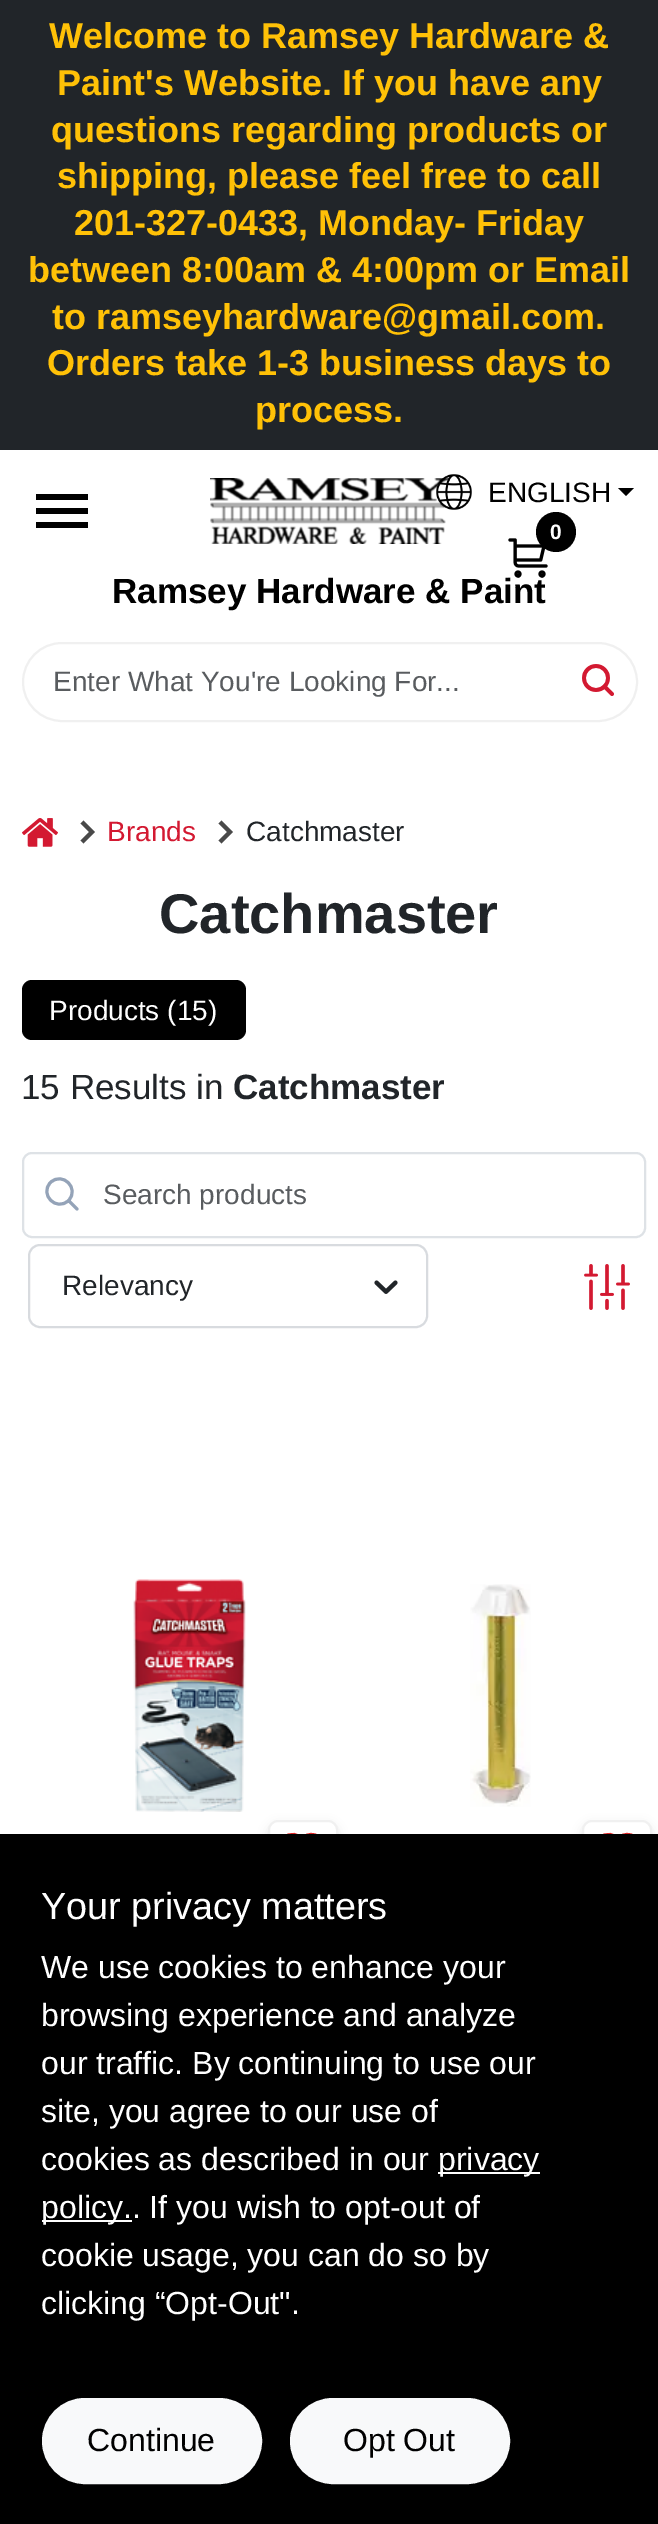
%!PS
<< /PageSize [658 2524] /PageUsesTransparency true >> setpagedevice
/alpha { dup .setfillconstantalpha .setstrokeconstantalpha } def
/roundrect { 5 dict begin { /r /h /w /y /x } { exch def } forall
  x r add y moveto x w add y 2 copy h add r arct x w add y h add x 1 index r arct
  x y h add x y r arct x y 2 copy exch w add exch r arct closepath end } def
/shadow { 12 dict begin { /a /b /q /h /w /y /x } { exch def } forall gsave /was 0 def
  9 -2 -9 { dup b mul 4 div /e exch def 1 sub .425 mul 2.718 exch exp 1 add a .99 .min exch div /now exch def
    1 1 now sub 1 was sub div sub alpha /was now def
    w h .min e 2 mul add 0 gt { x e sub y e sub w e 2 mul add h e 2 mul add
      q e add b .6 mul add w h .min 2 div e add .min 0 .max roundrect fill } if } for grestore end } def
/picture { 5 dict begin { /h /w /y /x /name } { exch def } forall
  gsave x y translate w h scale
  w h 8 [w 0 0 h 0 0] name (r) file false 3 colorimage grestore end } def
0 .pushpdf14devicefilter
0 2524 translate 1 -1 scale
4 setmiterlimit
1 setgray
0 0 658 2524 rectfill
0.129 0.145 0.161 setrgbcolor
0 0 658 450 rectfill
/LiberationSans-Bold [36 0 0 -36 0 0] selectfont
1 0.757 0.027 setrgbcolor
49 48 moveto (Welcome to Ramsey Hardware &) show
57 95 moveto (Paint's Website. If you have any) show
51 142 moveto (questions regarding products or) show
57 188 moveto (shipping, please feel free to call) show
74 235 moveto (201-327-0433, Monday- Friday) show
28 282 moveto (between 8:00am & 4:00pm or Email) show
52 329 moveto (to ramseyhardware@gmail.com.) show
47 375 moveto (Orders take 1-3 business days to) show
255 422 moveto (process.) show
0 setgray
36 494 52 6 rectfill
36 508 52 6 rectfill
36 522 52 6 rectfill
(img3.rgb) 210 478 240 66 picture
(img1.rgb) 436 474 36 36 picture
/LiberationSans-Regular [28 0 0 -28 0 0] selectfont
488 502 moveto (ENGLISH) show
newpath 618 488 moveto 634 488 lineto 626 496 lineto closepath fill
/LiberationSans-Bold [35 0 0 -35 0 0] selectfont
112 603 moveto (Ramsey Hardware & Paint) show
(img2.rgb) 508 538 40 40 picture
newpath 556 532 20 0 360 arc closepath fill
/LiberationSans-Bold [21 0 0 -21 0 0] selectfont
1 setgray
550 539 moveto -2 0 (0) ashow
0.941 setgray
2 setlinewidth
23 643 614 78 39 roundrect stroke
/LiberationSans-Regular [28 0 0 -28 0 0] selectfont
0.349 0.361 0.373 setrgbcolor
53 691 moveto (Enter What You're Looking For...) show
(img4.rgb) 582 664 32 32 picture
(img5.rgb) 22 818 36 29 picture
0.286 setgray
4 setlinewidth
newpath 82 822 moveto 92 832 lineto 82 842 lineto stroke
0.827 0.098 0.192 setrgbcolor
107 841 moveto (Brands) show
0.286 setgray
newpath 220 822 moveto 230 832 lineto 220 842 lineto stroke
0.129 0.145 0.161 setrgbcolor
246 841 moveto (Catchmaster) show
/LiberationSans-Bold [56 0 0 -56 0 0] selectfont
159 933 moveto (Catchmaster) show
0 setgray
22 980 224 60 10 roundrect fill
/LiberationSans-Regular [28 0 0 -28 0 0] selectfont
1 setgray
49 1020 moveto (Products \(15\)) show
/LiberationSans-Regular [35 0 0 -35 0 0] selectfont
0.129 0.145 0.161 setrgbcolor
21 1099 moveto (15 Results in) show
/LiberationSans-Bold [35 0 0 -35 0 0] selectfont
233 1099 moveto (Catchmaster) show
0.58 0.639 0.722 setrgbcolor
3 setlinewidth
1 setlinecap
1 setlinejoin
newpath 77 1209 moveto 68.5 1200.5 lineto 68.5 1200.5 moveto 80 1188.5 62.5 1171 50.5 1182.5 curveto 39 1194.5 56.5 1212 68.5 1200.5 curveto closepath stroke
0.871 0.886 0.902 setrgbcolor
2 setlinewidth
0 setlinecap
0 setlinejoin
23 1153 622 84 9 roundrect stroke
/LiberationSans-Regular [28 0 0 -28 0 0] selectfont
0.349 0.361 0.373 setrgbcolor
103 1204 moveto (Search products) show
0.847 0.859 0.875 setrgbcolor
29 1245 398 82 11 roundrect stroke
0.129 0.145 0.161 setrgbcolor
62 1295 moveto (Relevancy) show
(img6.rgb) 374 1280 24 14 picture
(img7.rgb) 584 1264 46 46 picture
(img8.rgb) 133 1579 113 233 picture
0 setgray
268 1824 70 70 10 5 0.1 shadow
1 setgray
269 1821 68 68 9 roundrect gsave fill grestore
0.941 setgray
stroke
0.863 0.149 0.149 setrgbcolor
3.5 setlinewidth
1 setlinecap
newpath 318 1836.5 moveto 313.5 1834 308.5 1834 304 1837 curveto 302 1838 lineto 300 1837 lineto 296 1834.5 292 1834 288 1835.5 curveto 278 1840 279 1852 284.5 1860 curveto 287.5 1864.5 292 1869 297.5 1872 curveto 302 1875 306 1873 310 1870 curveto 314.5 1866 316.5 1864.5 319.5 1860 curveto 324 1853 326.5 1841.5 318 1836.5 curveto closepath stroke
(img9.rgb) 470 1584 61 223 picture
0 setgray
582 1824 70 70 10 5 0.1 shadow
1 setgray
583 1821 68 68 9 roundrect gsave fill grestore
0.941 setgray
2 setlinewidth
0 setlinecap
stroke
0.863 0.149 0.149 setrgbcolor
3.5 setlinewidth
1 setlinecap
newpath 634 1836.5 moveto 629.5 1834 624.5 1834 620 1837 curveto 618 1838 lineto 616 1837 lineto 612 1834.5 608 1834 604 1835.5 curveto 594 1840 595 1852 600.5 1860 curveto 603.5 1864.5 608 1869 613.5 1872 curveto 618 1875 622 1873 626 1870 curveto 630.5 1866 632.5 1864.5 635.5 1860 curveto 640 1853 642.5 1841.5 634 1836.5 curveto closepath stroke
0 setgray
0 1834 658 690 rectfill
/LiberationSans-Regular [37.75 0 0 -37.75 0 0] selectfont
1 setgray
41 1919 moveto (Your privacy matters) show
/LiberationSans-Regular [32 0 0 -32 0 0] selectfont
41 1978 moveto (We use cookies to enhance your) show
41 2026 moveto (browsing experience and analyze) show
41 2074 moveto (our traffic. By continuing to use our) show
41 2122 moveto (site, you agree to our use of) show
41 2170 moveto (cookies as described in our) show
438 2172 102 2 rectfill
438 2170 moveto (privacy) show
42 2220 90 2 rectfill
41 2218 moveto (policy.. If you wish to opt-out of) show
41 2266 moveto (cookie usage, you can do so by) show
41 2314 moveto (clicking “Opt-Out".) show
0.973 0.976 0.98 setrgbcolor
43 2399 218 84 42 roundrect gsave fill grestore
2 setlinewidth
0 setlinecap
stroke
0 setgray
87 2451 moveto (Continue) show
0.973 0.976 0.98 setrgbcolor
291 2399 218 84 42 roundrect gsave fill grestore
stroke
0 setgray
343 2451 moveto (Opt Out) show
.poppdf14devicefilter showpage
